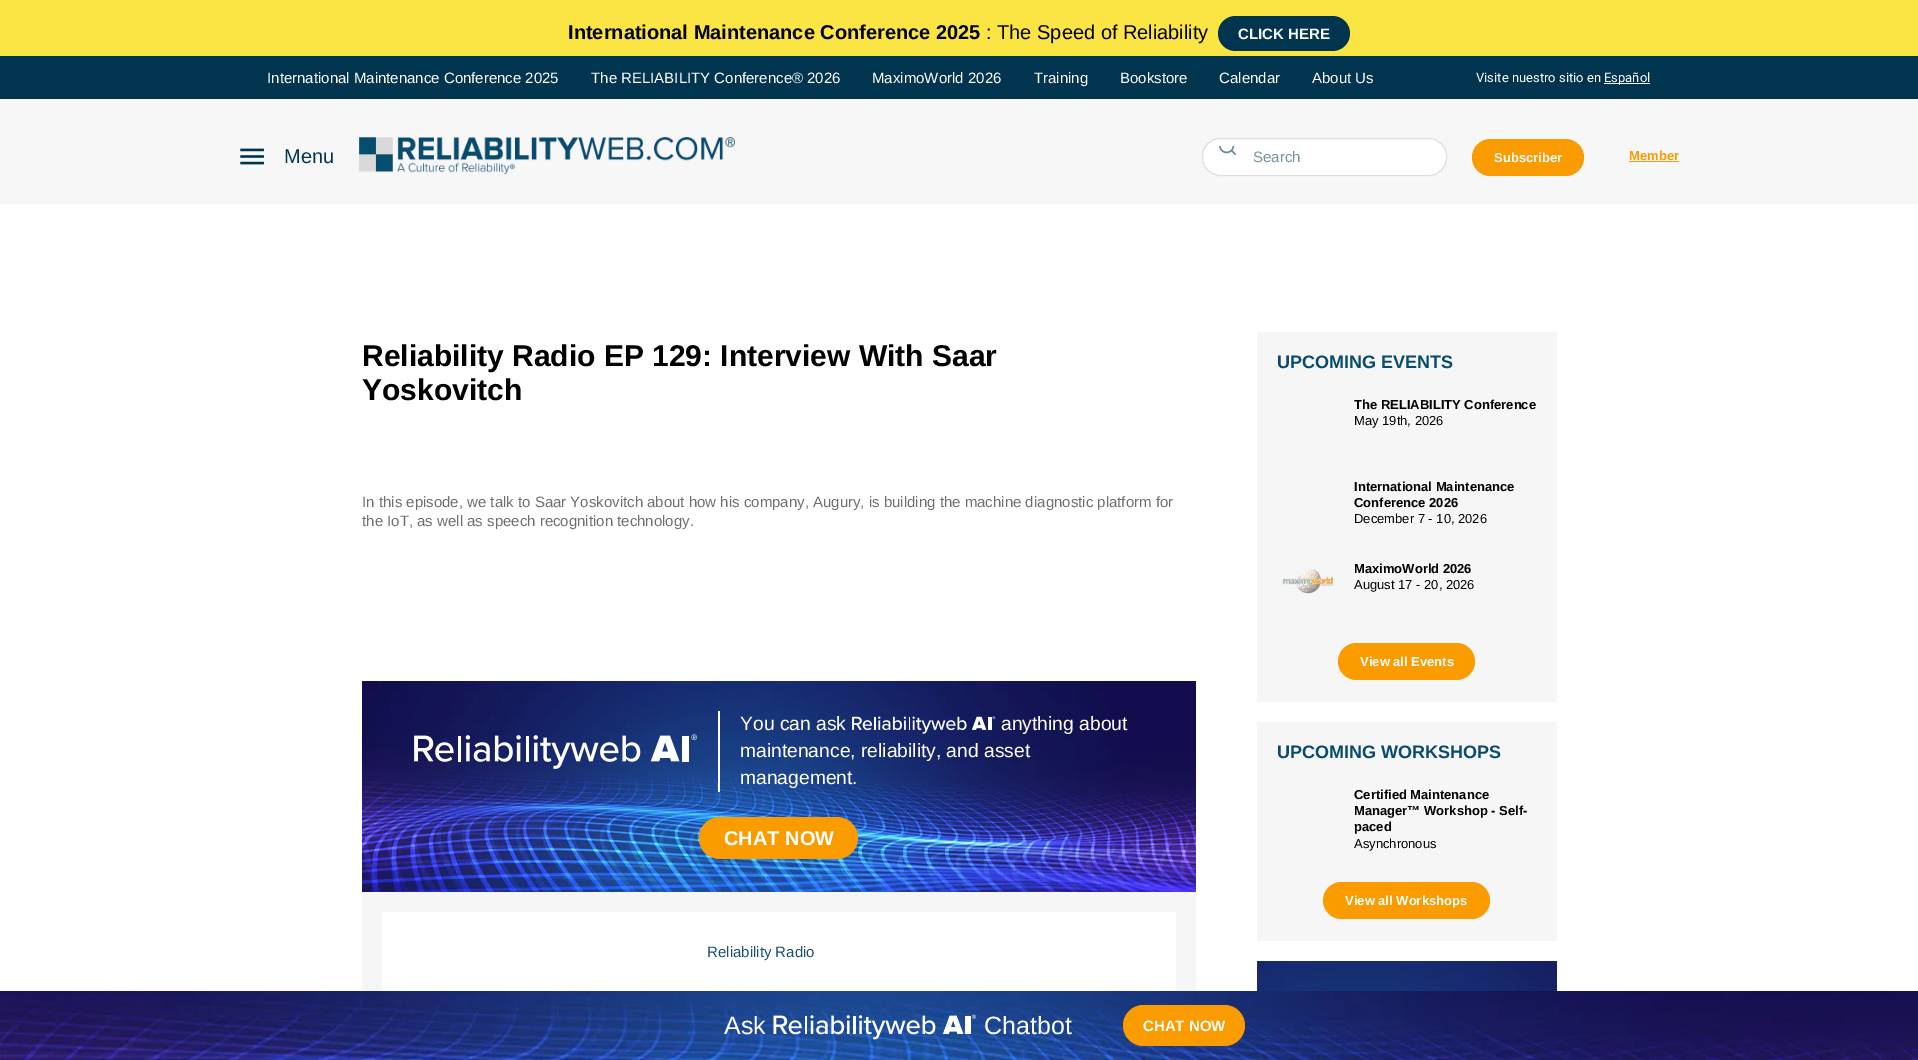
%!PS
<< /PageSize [1918 1060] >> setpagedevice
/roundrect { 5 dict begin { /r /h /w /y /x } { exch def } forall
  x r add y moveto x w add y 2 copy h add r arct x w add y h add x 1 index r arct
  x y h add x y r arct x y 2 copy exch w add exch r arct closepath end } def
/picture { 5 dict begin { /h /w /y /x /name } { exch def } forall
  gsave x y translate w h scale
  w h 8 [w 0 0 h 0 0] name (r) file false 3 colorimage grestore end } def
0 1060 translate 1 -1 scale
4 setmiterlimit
1 setgray
0 0 1918 1060 rectfill
0.984 0.898 0.271 setrgbcolor
0 0 1918 56 rectfill
/LiberationSans-Bold [20 0 0 -20 0 0] selectfont
0 setgray
568 39 moveto (International Maintenance Conference 2025) show
/LiberationSans-Regular [20 0 0 -20 0 0] selectfont
986 39 moveto (: The Speed of Reliability) show
0 0.204 0.31 setrgbcolor
1218 16 132 35 17.5 roundrect fill
/LiberationSans-Bold [15 0 0 -15 0 0] selectfont
1 setgray
1238 39 moveto (CLICK HERE) show
0 0.204 0.31 setrgbcolor
0 56 1918 43 rectfill
/LiberationSans-Regular [15 0 0 -15 0 0] selectfont
1 setgray
267 83 moveto (International Maintenance Conference 2025) show
591 83 moveto (The RELIABILITY Conference® 2026) show
872 83 moveto (MaximoWorld 2026) show
1034 83 moveto (Training) show
1120 83 moveto (Bookstore) show
1219 83 moveto (Calendar) show
1312 83 moveto (About Us) show
/Roboto-Regular [13 0 0 -13 0 0] selectfont
1476 82 moveto (Visite nuestro sitio en) show
1604 83 46 1 rectfill
1604 82 moveto (Español) show
0.969 setgray
0 99 1918 105 rectfill
(img1.rgb) 240 148 24 17 picture
/LiberationSans-Regular [20 0 0 -20 0 0] selectfont
0 0.204 0.31 setrgbcolor
284 163 moveto (Menu) show
(img2.rgb) 359 137 376 37 picture
1 setgray
1202.5 138.5 244 37 17.5 roundrect gsave fill grestore
0.875 setgray
stroke
(img3.rgb) 1219 146 17 9 picture
/LiberationSans-Regular [15 0 0 -15 0 0] selectfont
0.463 0.569 0.624 setrgbcolor
1253 162 moveto (Search) show
0.98 0.608 0 setrgbcolor
1472 139 112 37 18.5 roundrect fill
/LiberationSans-Bold [13 0 0 -13 0 0] selectfont
1 setgray
1494 162 moveto (Subscriber) show
0.98 0.608 0 setrgbcolor
1629 160 moveto (Member) show
1629 161 50 1 rectfill
/LiberationSans-Bold [30 0 0 -30 0 0] selectfont
0 setgray
362 366 moveto (Reliability Radio EP 129: Interview With Saar) show
362 400 moveto (Yoskovitch) show
/LiberationSans-Regular [15 0 0 -15 0 0] selectfont
0.439 0.435 0.435 setrgbcolor
362 507 moveto (In this episode, we talk to Saar Yoskovitch about how his company, Augury, is building the machine diagnostic platform for) show
362 526 moveto (the IoT, as well as speech recognition technology.) show
(img4.rgb) 362 681 834 211 picture
(img5.rgb) 414 734 283 35 picture
1 setgray
718 711 2 81 rectfill
/LiberationSans-Regular [19.25 0 0 -19.25 0 0] selectfont
740 730 moveto (You can ask) show
(img6.rgb) 852 716 144 18 picture
1001 730 moveto (anything about) show
740 757 moveto (maintenance, reliability, and asset) show
740 784 moveto (management.) show
0.98 0.608 0 setrgbcolor
699 817 159 42 21 roundrect fill
/LiberationSans-Bold [20 0 0 -20 0 0] selectfont
1 setgray
724 845 moveto (CHAT NOW) show
0.965 setgray
362 892 834 99 rectfill
1 setgray
382 912 794 79 rectfill
/LiberationSans-Regular [15 0 0 -15 0 0] selectfont
0.098 0.322 0.439 setrgbcolor
707 957 moveto (Reliability Radio) show
0.965 setgray
1257 332 300 370 rectfill
/LiberationSans-Bold [18 0 0 -18 0 0] selectfont
0.035 0.294 0.427 setrgbcolor
1277 368 moveto (UPCOMING EVENTS) show
/LiberationSans-Bold [13 0 0 -13 0 0] selectfont
0 setgray
1354 409 moveto (The RELIABILITY Conference) show
/LiberationSans-Regular [13 0 0 -13 0 0] selectfont
1354 425 moveto (May 19th, 2026) show
/LiberationSans-Bold [13 0 0 -13 0 0] selectfont
1354 491 moveto (International Maintenance) show
1354 507 moveto (Conference 2026) show
/LiberationSans-Regular [13 0 0 -13 0 0] selectfont
1354 523 moveto (December 7 - 10, 2026) show
(img7.rgb) 1282 568 52 26 picture
/LiberationSans-Bold [13 0 0 -13 0 0] selectfont
1354 573 moveto (MaximoWorld 2026) show
/LiberationSans-Regular [13 0 0 -13 0 0] selectfont
1354 589 moveto (August 17 - 20, 2026) show
0.98 0.608 0 setrgbcolor
1338 643 137 37 18.5 roundrect fill
/LiberationSans-Bold [13 0 0 -13 0 0] selectfont
1 setgray
1360 666 moveto (View all Events) show
0.965 setgray
1257 722 300 219 rectfill
/LiberationSans-Bold [18 0 0 -18 0 0] selectfont
0.035 0.294 0.427 setrgbcolor
1277 758 moveto (UPCOMING WORKSHOPS) show
/LiberationSans-Bold [13 0 0 -13 0 0] selectfont
0 setgray
1354 799 moveto (Certified Maintenance) show
1354 815 moveto (Manager™ Workshop - Self-) show
1354 831 moveto (paced) show
/LiberationSans-Regular [13 0 0 -13 0 0] selectfont
1354 848 moveto (Asynchronous) show
0.98 0.608 0 setrgbcolor
1323 882 167 37 18.5 roundrect fill
/LiberationSans-Bold [13 0 0 -13 0 0] selectfont
1 setgray
1345 905 moveto (View all Workshops) show
(img8.rgb) 1257 961 300 30 picture
(img9.rgb) 0 991 1918 69 picture
/LiberationSans-Regular [25 0 0 -25 0 0] selectfont
724 1034 moveto (Ask) show
(img10.rgb) 773 1014 203 26 picture
984 1034 moveto (Chatbot) show
0.98 0.608 0 setrgbcolor
1123 1005 122 41 20.5 roundrect fill
/LiberationSans-Bold [15 0 0 -15 0 0] selectfont
1 setgray
1143 1031 moveto (CHAT NOW) show
showpage
